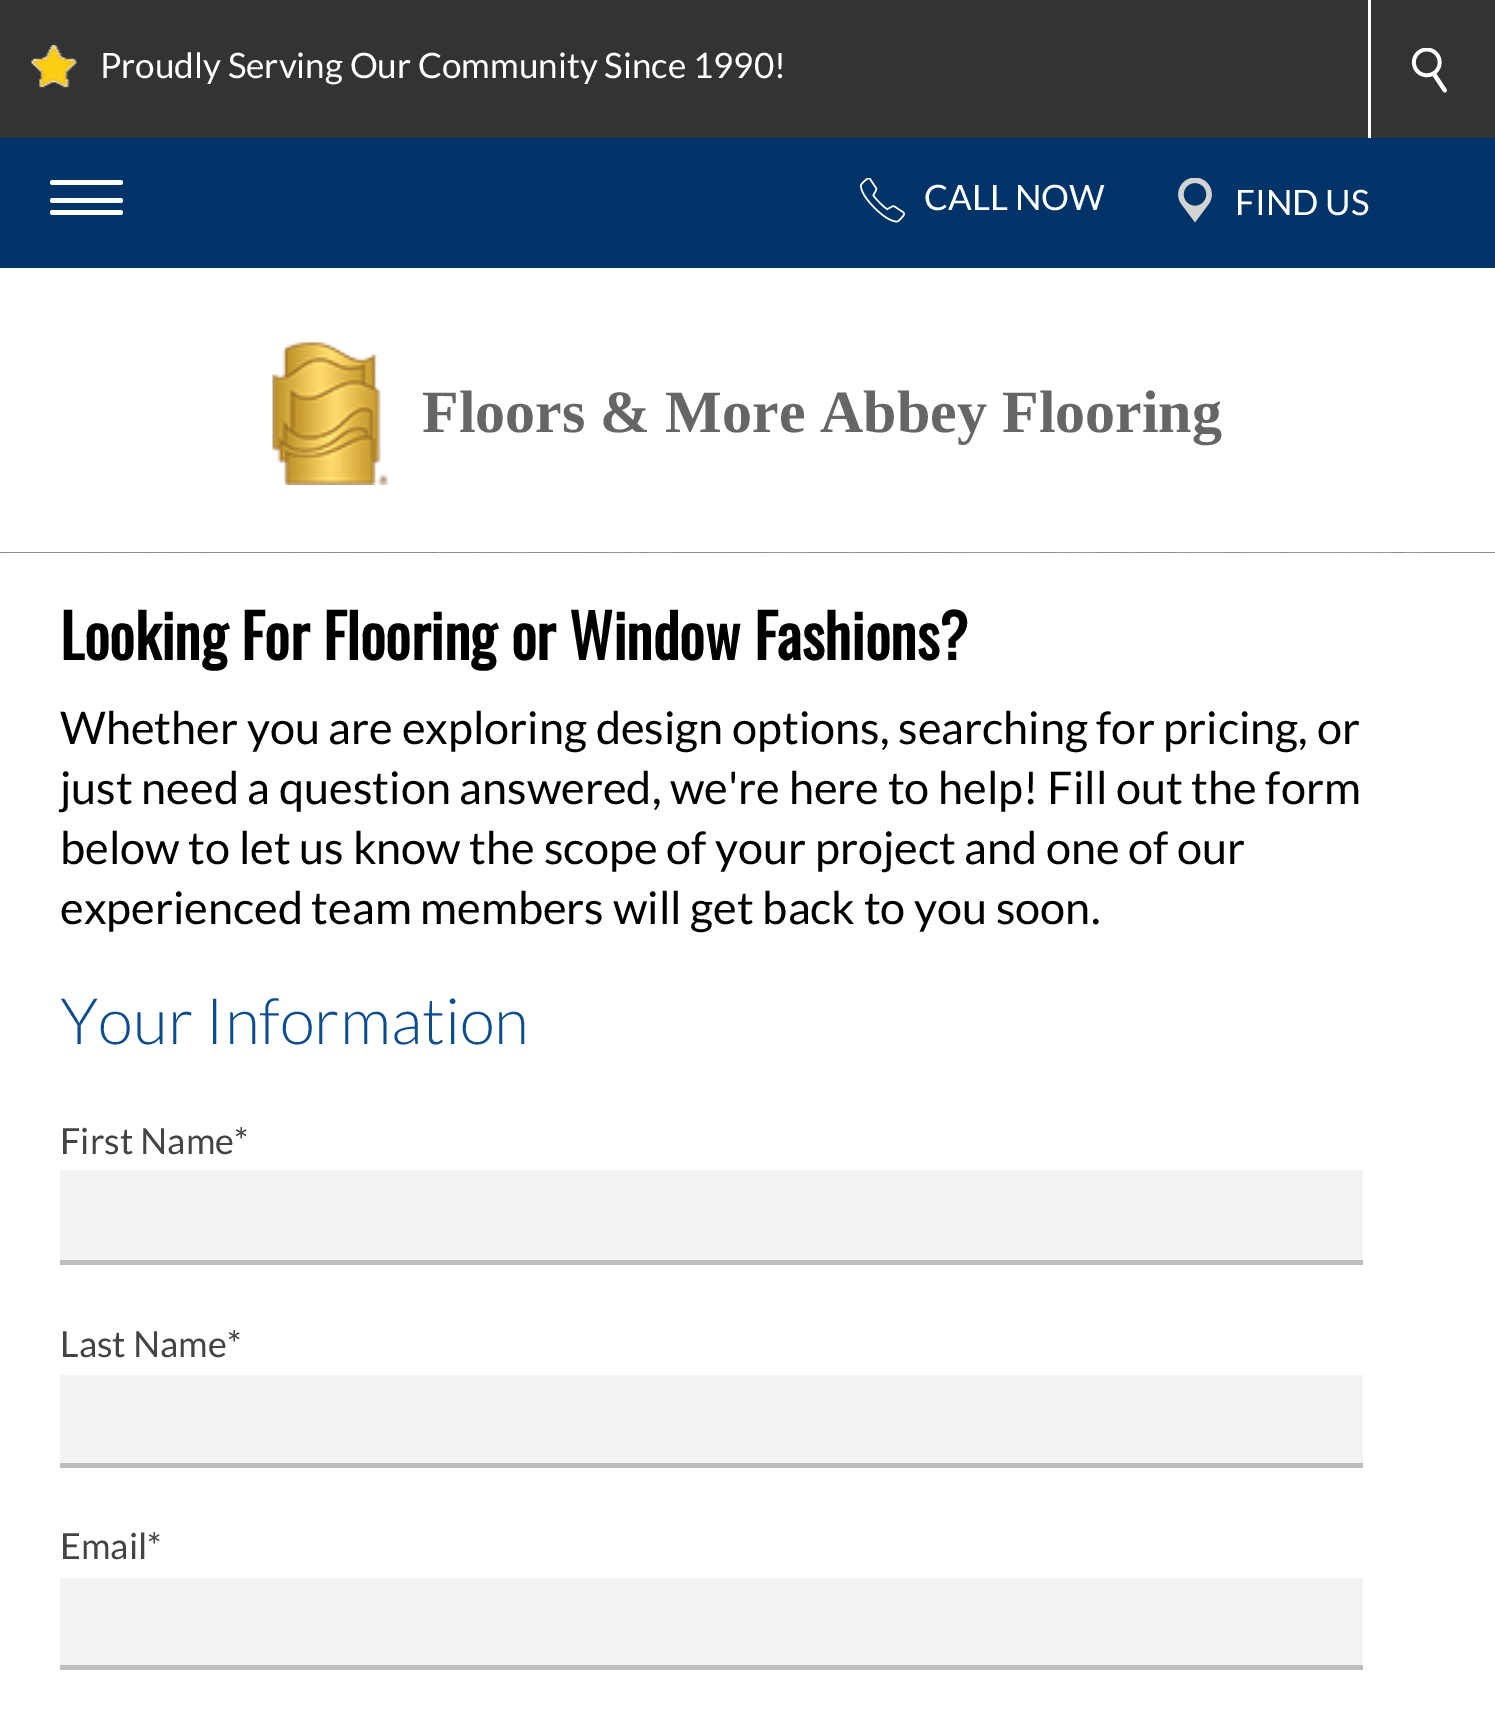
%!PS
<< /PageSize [1495 1717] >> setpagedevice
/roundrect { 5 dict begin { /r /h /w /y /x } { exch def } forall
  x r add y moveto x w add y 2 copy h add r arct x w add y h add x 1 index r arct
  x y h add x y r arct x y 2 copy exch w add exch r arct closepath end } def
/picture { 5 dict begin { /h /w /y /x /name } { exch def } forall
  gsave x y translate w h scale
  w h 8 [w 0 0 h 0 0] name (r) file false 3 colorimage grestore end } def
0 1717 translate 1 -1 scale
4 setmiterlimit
1 setgray
0 0 1495 1717 rectfill
0.2 setgray
0 0 1495 138 rectfill
(img1.rgb) 31 45 46 43 picture
/Lato-Regular [35 0 0 -35 0 0] selectfont
1 setgray
100 78 moveto (Proudly Serving Our Community Since 1990!) show
0 0.2 0.404 setrgbcolor
0 138 1495 130 rectfill
1 setgray
50 180 73 5 2.5 roundrect fill
83 198 40 5 2.5 roundrect fill
50 198 40 5 2.5 roundrect fill
50 210 73 5 2.5 roundrect fill
1368 0 3 138 rectfill
(img2.rgb) 1411 48 36 45 picture
(img3.rgb) 860 178 45 45 picture
924 210 moveto (CALL NOW) show
(img4.rgb) 1178 178 34 45 picture
1235 215 moveto (FIND US) show
(img5.rgb) 272 341 117 144 picture
/LiberationSerif-Bold [60 0 0 -60 0 0] selectfont
0.4 setgray
422 432 moveto (Floors & More Abbey Flooring) show
(img6.rgb) 0 552 1495 1 picture
/Oswald-Bold [60 0 0 -60 0 0] selectfont
0 setgray
60 660 moveto (Looking For Flooring or Window Fashions?) show
/Lato-Regular [45 0 0 -45 0 0] selectfont
60 744 moveto (Whether you are exploring design options, searching for pricing, or) show
60 804 moveto (just need a question answered, we're here to help! Fill out the form) show
60 864 moveto (below to let us know the scope of your project and one of our) show
60 924 moveto (experienced team members will get back to you soon.) show
/Lato-Light [64 0 0 -64 0 0] selectfont
0.047 0.302 0.561 setrgbcolor
60 1044 moveto (Your Information) show
/Lato-Regular [36 0 0 -36 0 0] selectfont
0.267 setgray
60 1154 moveto (First Name*) show
0.953 setgray
60 1170 1303 90 rectfill
0.745 setgray
60 1260 1303 5 rectfill
0.267 setgray
60 1357 moveto (Last Name*) show
0.953 setgray
60 1375 1303 88 rectfill
0.745 setgray
60 1463 1303 5 rectfill
0.267 setgray
60 1559 moveto (Email*) show
0.953 setgray
60 1578 1303 87 rectfill
0.745 setgray
60 1665 1303 5 rectfill
showpage
